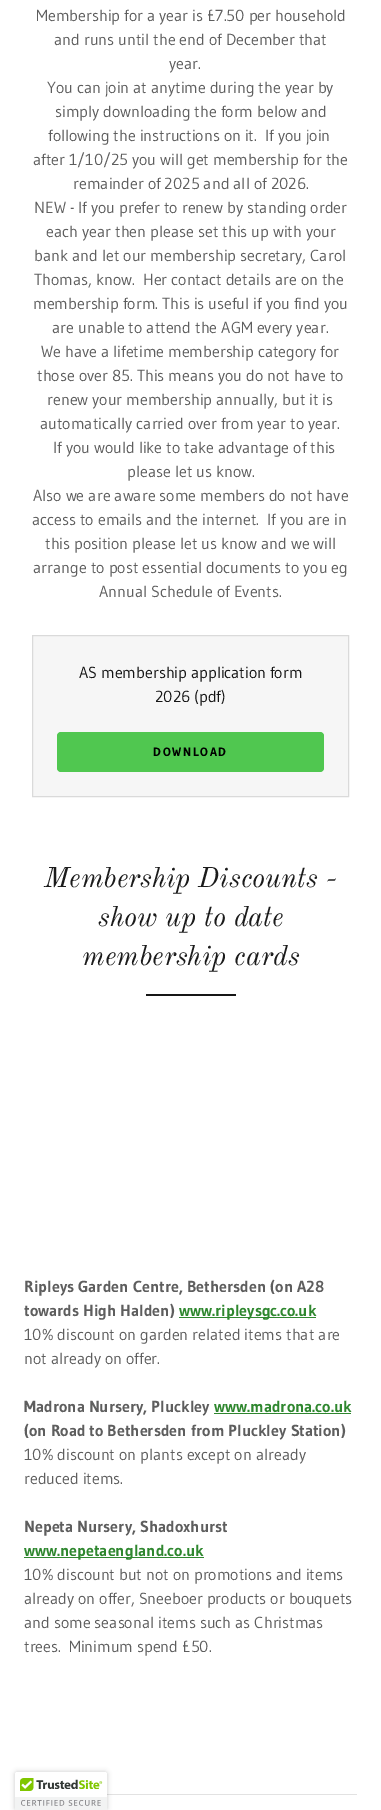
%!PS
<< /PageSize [381 1810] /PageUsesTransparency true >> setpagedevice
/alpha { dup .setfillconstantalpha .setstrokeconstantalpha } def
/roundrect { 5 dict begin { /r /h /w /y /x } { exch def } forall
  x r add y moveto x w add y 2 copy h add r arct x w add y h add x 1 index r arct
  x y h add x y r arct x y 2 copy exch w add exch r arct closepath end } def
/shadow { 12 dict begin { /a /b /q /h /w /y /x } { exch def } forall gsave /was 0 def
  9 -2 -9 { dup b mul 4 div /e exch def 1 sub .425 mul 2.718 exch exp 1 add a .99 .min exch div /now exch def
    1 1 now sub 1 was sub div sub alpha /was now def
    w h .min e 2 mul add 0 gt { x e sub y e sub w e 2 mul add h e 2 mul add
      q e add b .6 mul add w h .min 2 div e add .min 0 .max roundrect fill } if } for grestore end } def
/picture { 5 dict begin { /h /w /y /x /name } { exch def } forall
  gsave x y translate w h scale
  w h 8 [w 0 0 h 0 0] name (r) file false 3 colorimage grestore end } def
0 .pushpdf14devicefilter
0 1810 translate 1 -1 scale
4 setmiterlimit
1 setgray
0 0 381 1810 rectfill
/Gudea-Regular [16 0 0 -16 0 0] selectfont
0.369 setgray
36 21 moveto (Membership for a year is £7.50 per household) show
54 45 moveto (and runs until the end of December that) show
169 69 moveto (year.) show
47 93 moveto (You can join at anytime during the year by) show
55 117 moveto (simply downloading the form below and) show
48 141 moveto (following the instructions on it.  If you join) show
33 165 moveto (after 1/10/25 you will get membership for the) show
73 189 moveto (remainder of 2025 and all of 2026.) show
34 213 moveto (NEW - If you prefer to renew by standing order) show
46 237 moveto (each year then please set this up with your) show
34 261 moveto (bank and let our membership secretary, Carol) show
34 285 moveto (Thomas, know.  Her contact details are on the) show
33 309 moveto (membership form. This is useful if you find you) show
52 333 moveto (are unable to attend the AGM every year.) show
41 357 moveto (We have a lifetime membership category for) show
37 381 moveto (those over 85. This means you do not have to) show
47 405 moveto (renew your membership annually, but it is) show
40 429 moveto (automatically carried over from year to year.) show
53 453 moveto (If you would like to take advantage of this) show
127 477 moveto (please let us know.) show
33 501 moveto (Also we are aware some members do not have) show
32 525 moveto (access to emails and the internet.  If you are in) show
45 549 moveto (this position please let us know and we will) show
33 573 moveto (arrange to post essential documents to you eg) show
99 597 moveto (Annual Schedule of Events.) show
0.965 setgray
newpath 32.5 635.5 moveto 348.5 635.5 lineto 348.5 796.5 lineto 32.5 796.5 lineto closepath gsave fill grestore
0.855 setgray
stroke
0.082 setgray
79 678 moveto (AS membership application form) show
155 702 moveto (2026 \(pdf\)) show
0.314 0.78 0.314 setrgbcolor
57 732 267 40 4 roundrect fill
/Gudea-Bold [12 0 0 -12 0 0] selectfont
0 setgray
153 756 moveto 1.75 0 (DOWNLOAD) ashow
/OldStandardTT-Italic [28 0 0 -28 0 0] selectfont
0.106 setgray
44 887 moveto (Membership Discounts -) show
98 926 moveto (show up to date) show
82 965 moveto (membership cards) show
0.086 setgray
146 994 90 2 rectfill
/Gudea-Bold [16 0 0 -16 0 0] selectfont
0.369 setgray
24 1292 moveto (Ripleys Garden Centre, Bethersden \(on A28) show
24 1316 moveto (towards High Halden\)) show
0.184 0.529 0.184 setrgbcolor
179 1317 137 1 rectfill
179 1316 moveto (www.ripleysgc.co.uk) show
/Gudea-Regular [16 0 0 -16 0 0] selectfont
0.369 setgray
24 1340 moveto (10% discount on garden related items that are) show
24 1364 moveto (not already on offer.) show
/Gudea-Bold [16 0 0 -16 0 0] selectfont
24 1412 moveto (Madrona Nursery, Pluckley) show
0.184 0.529 0.184 setrgbcolor
214 1412 moveto (www.madrona.co.uk) show
214 1413 137 1 rectfill
0.369 setgray
24 1436 moveto (\(on Road to Bethersden from Pluckley Station\)) show
/Gudea-Regular [16 0 0 -16 0 0] selectfont
24 1460 moveto (10% discount on plants except on already) show
24 1484 moveto (reduced items.) show
/Gudea-Bold [16 0 0 -16 0 0] selectfont
24 1532 moveto (Nepeta Nursery, Shadoxhurst) show
0.184 0.529 0.184 setrgbcolor
24 1557 180 1 rectfill
24 1556 moveto (www.nepetaengland.co.uk) show
/Gudea-Regular [16 0 0 -16 0 0] selectfont
0.369 setgray
24 1580 moveto (10% discount but not on promotions and items) show
24 1604 moveto (already on offer, Sneeboer products or bouquets) show
24 1628 moveto (and some seasonal items such as Christmas) show
24 1652 moveto (trees.  Minimum spend £50.) show
0.886 setgray
107 1794 250 1 rectfill
0 setgray
15 1772 92 38 2 2.5 0.2 shadow
1 setgray
newpath 17 1772 moveto 105 1772 lineto 106 1772 107 1773 107 1774 curveto 107 1810 lineto 15 1810 lineto 15 1774 lineto 15 1773 16 1772 17 1772 curveto closepath fill
(img1.rgb) 15 1778 92 32 picture
.poppdf14devicefilter showpage
